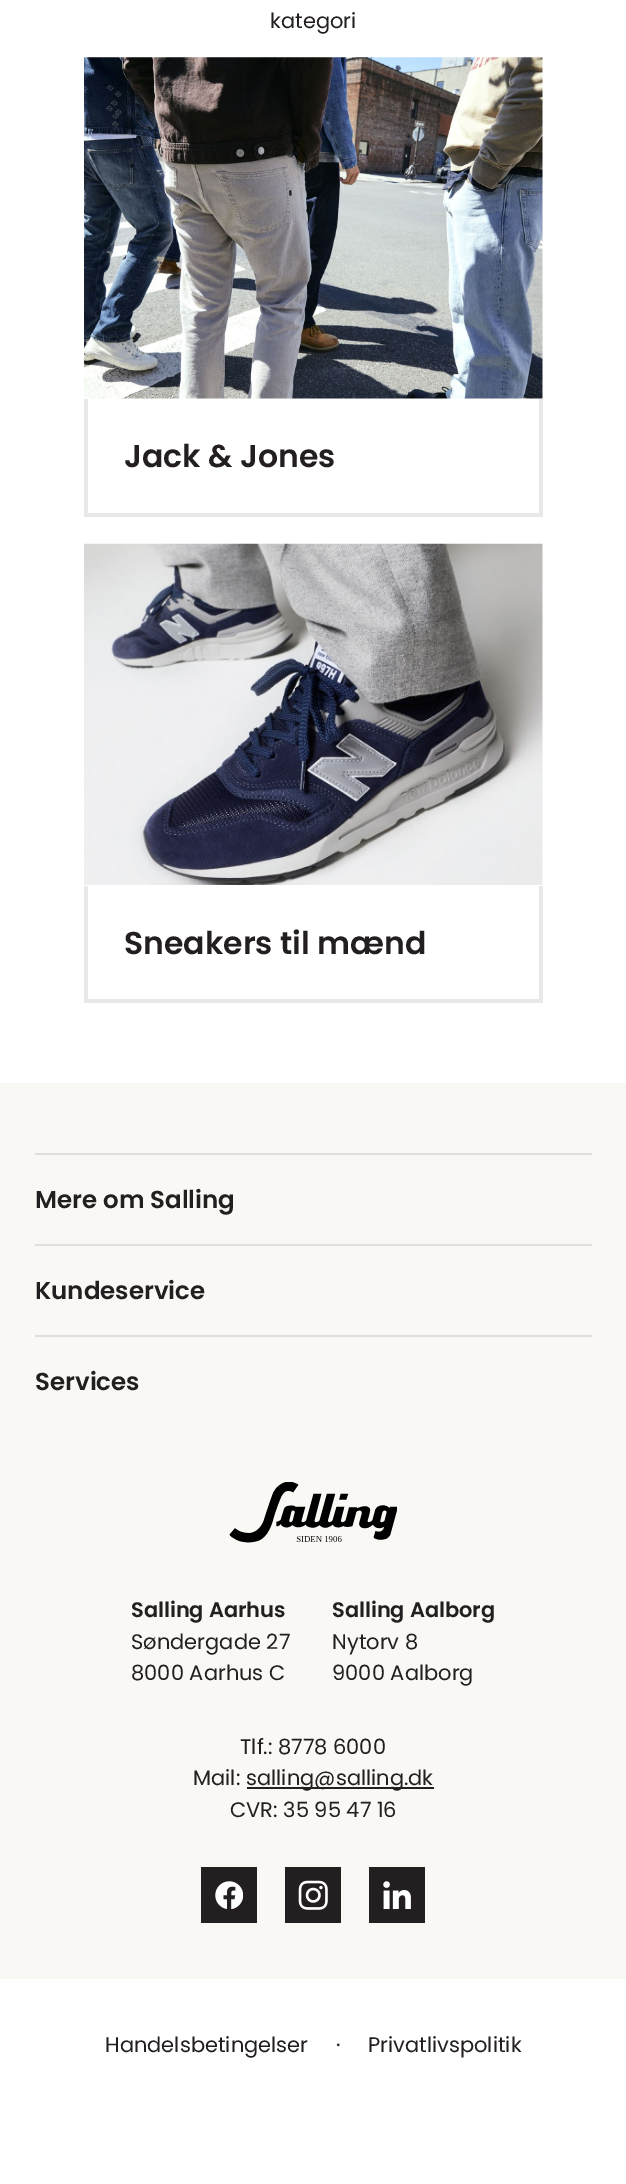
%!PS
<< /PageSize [626 2184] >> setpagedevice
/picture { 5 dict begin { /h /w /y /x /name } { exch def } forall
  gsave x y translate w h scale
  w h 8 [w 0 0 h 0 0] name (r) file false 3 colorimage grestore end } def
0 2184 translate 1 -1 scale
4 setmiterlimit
1 setgray
0 0 626 2184 rectfill
/Poppins-Regular [21 0 0 -21 0 0] selectfont
0.137 0.122 0.125 setrgbcolor
270 28 moveto (kategori) show
(img1.rgb) 84 57 459 342 picture
0.914 0.91 0.91 setrgbcolor
539 399 4 117 rectfill
84 513 459 4 rectfill
84 399 4 117 rectfill
/Poppins-SemiBold [31.5 0 0 -31.5 0 0] selectfont
0.137 0.122 0.125 setrgbcolor
124 467 moveto (Jack & Jones) show
(img2.rgb) 84 543 459 342 picture
0.914 0.91 0.91 setrgbcolor
539 886 4 117 rectfill
84 999 459 4 rectfill
84 886 4 117 rectfill
0.137 0.122 0.125 setrgbcolor
124 954 moveto (Sneakers til mænd) show
0.98 0.973 0.957 setrgbcolor
0 1083 626 896 rectfill
0.871 setgray
35 1153 557 2 rectfill
/Poppins-SemiBold [24.5 0 0 -24.5 0 0] selectfont
0.137 0.122 0.125 setrgbcolor
35 1208 moveto (Mere om Salling) show
0.871 setgray
35 1244 557 2 rectfill
0.137 0.122 0.125 setrgbcolor
35 1299 moveto (Kundeservice) show
0.871 setgray
35 1335 557 2 rectfill
0.137 0.122 0.125 setrgbcolor
35 1390 moveto (Services) show
(img3.rgb) 229 1482 168 61 picture
/Poppins-SemiBold [21 0 0 -21 0 0] selectfont
131 1617 moveto (Salling Aarhus) show
/Poppins-Regular [21 0 0 -21 0 0] selectfont
131 1649 moveto (Søndergade 27) show
131 1680 moveto (8000 Aarhus C) show
/Poppins-SemiBold [21 0 0 -21 0 0] selectfont
332 1617 moveto (Salling Aalborg) show
/Poppins-Regular [21 0 0 -21 0 0] selectfont
332 1649 moveto (Nytorv 8) show
332 1680 moveto (9000 Aalborg) show
240 1754 moveto (Tlf.: 8778 6000) show
193 1785 moveto (Mail:) show
247 1787 187 2 rectfill
246 1785 moveto (salling@salling.dk) show
230 1817 moveto (CVR: 35 95 47 16) show
201 1867 56 56 rectfill
(img4.rgb) 215 1881 28 28 picture
285 1867 56 56 rectfill
(img5.rgb) 298 1880 30 30 picture
369 1867 56 56 rectfill
(img6.rgb) 383 1881 28 28 picture
105 2052 moveto (Handelsbetingelser) show
336 2052 moveto (·) show
368 2052 moveto (Privatlivspolitik) show
showpage
